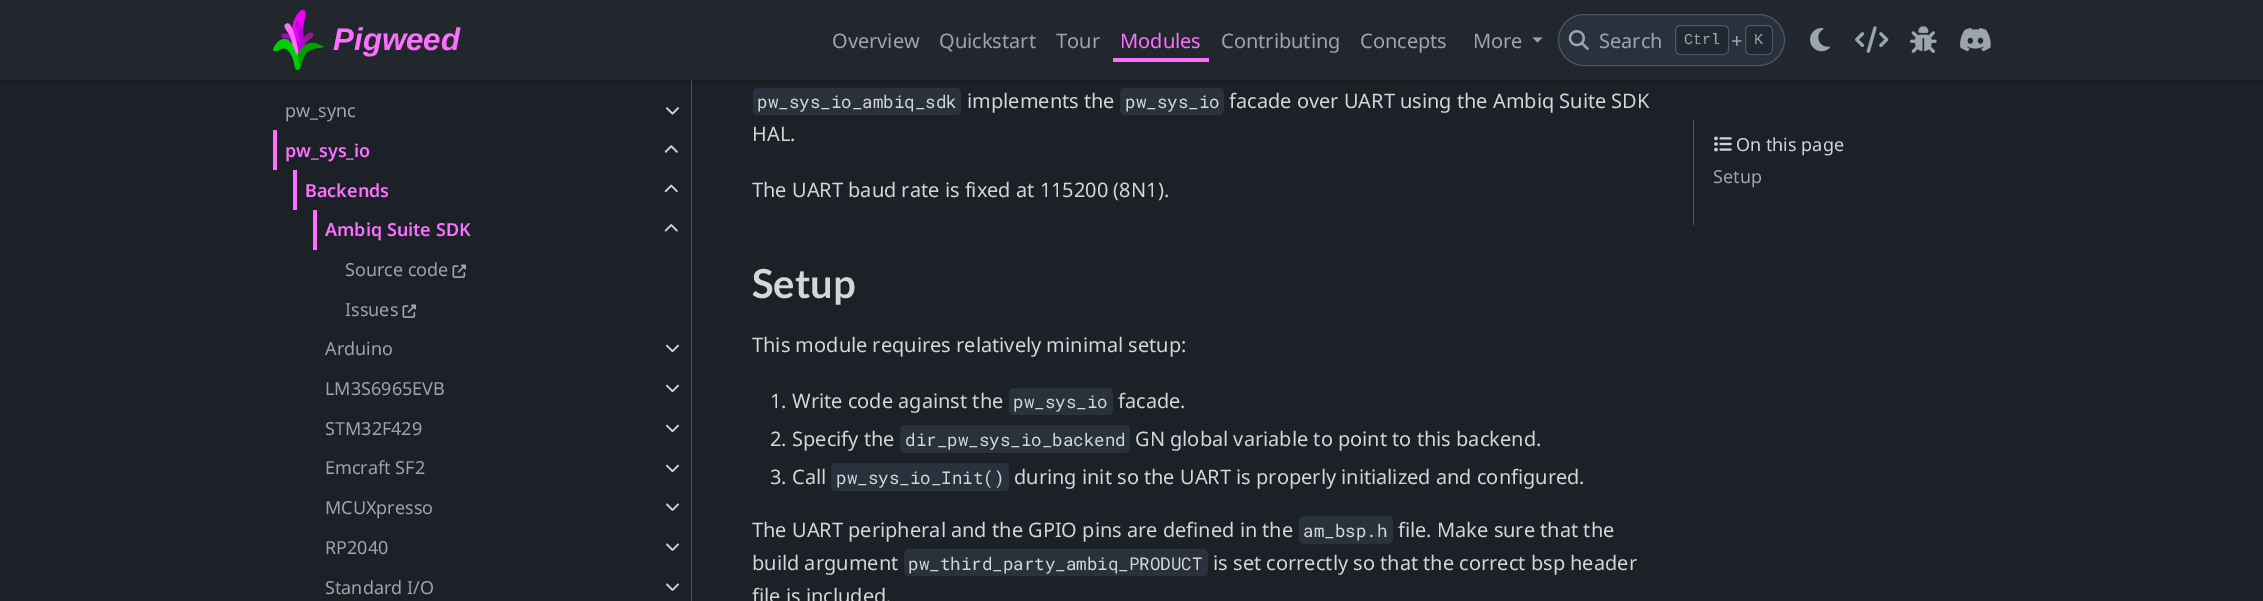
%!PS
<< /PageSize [2263 601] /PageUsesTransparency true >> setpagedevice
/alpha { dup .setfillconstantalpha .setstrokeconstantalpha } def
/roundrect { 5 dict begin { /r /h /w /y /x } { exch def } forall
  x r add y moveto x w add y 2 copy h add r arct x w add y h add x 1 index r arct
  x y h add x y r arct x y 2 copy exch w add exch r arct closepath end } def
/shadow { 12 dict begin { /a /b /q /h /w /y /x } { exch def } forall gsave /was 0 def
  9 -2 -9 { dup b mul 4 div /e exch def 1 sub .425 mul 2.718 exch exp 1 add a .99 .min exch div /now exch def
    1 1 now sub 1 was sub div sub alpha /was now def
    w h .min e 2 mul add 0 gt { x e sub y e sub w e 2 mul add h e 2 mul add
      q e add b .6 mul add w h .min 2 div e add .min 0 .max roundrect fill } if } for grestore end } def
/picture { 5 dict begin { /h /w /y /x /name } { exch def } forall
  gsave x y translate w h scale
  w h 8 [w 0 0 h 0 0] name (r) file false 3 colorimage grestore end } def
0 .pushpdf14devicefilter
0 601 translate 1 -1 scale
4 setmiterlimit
0.11 0.129 0.157 setrgbcolor
0 0 2263 601 rectfill
0.282 0.337 0.42 setrgbcolor
691 80 1 521 rectfill
0.161 0.192 0.239 setrgbcolor
753 88 208 27 5 roundrect fill
1120 88 104 27 5 roundrect fill
0 setgray
0 3 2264 80 0 2.5 0.2 shadow
0.133 0.153 0.18 setrgbcolor
0 0 2263 80 rectfill
(img1.rgb) 273 10 51 60 picture
/LiberationSans-BoldItalic [31.25 0 0 -31.25 0 0] selectfont
0.984 0.443 0.996 setrgbcolor
333 50 moveto (Pigweed) show
/NotoSans-Regular [20 0 0 -20 0 0] selectfont
0.612 0.643 0.686 setrgbcolor
832 48 moveto (Overview) show
939 48 moveto (Quickstart) show
1056 48 moveto (Tour) show
0.984 0.443 0.996 setrgbcolor
1120 48 moveto (Modules) show
1113 58 96 4 rectfill
0.612 0.643 0.686 setrgbcolor
1221 48 moveto (Contributing) show
1360 48 moveto (Concepts) show
1473 48 moveto (More) show
newpath 1532.5 37.5 moveto 1542.5 37.5 lineto 1537.5 42.5 lineto closepath fill
0.161 0.192 0.239 setrgbcolor
1558.5 14.5 226 51 25.5 roundrect gsave fill grestore
0.282 0.337 0.42 setrgbcolor
stroke
(img2.rgb) 1568 30 21 20 picture
0.612 0.643 0.686 setrgbcolor
1599 48 moveto (Search) show
0 setgray
1676 26 54 30 5 0.5 0.2 shadow
0.133 0.157 0.196 setrgbcolor
1675.5 25.5 53 29 4.5 roundrect gsave fill grestore
0.282 0.337 0.42 setrgbcolor
stroke
/LiberationMono-Regular [15 0 0 -15 0 0] selectfont
0.612 0.643 0.686 setrgbcolor
1684 44 moveto (Ctrl) show
/NotoSans-Regular [20 0 0 -20 0 0] selectfont
1731 48 moveto (+) show
0 setgray
1746 26 28 30 5 0.5 0.2 shadow
0.133 0.157 0.196 setrgbcolor
1745.5 25.5 27 29 4.5 roundrect gsave fill grestore
0.282 0.337 0.42 setrgbcolor
stroke
/LiberationMono-Regular [15 0 0 -15 0 0] selectfont
0.612 0.643 0.686 setrgbcolor
1754 44 moveto (K) show
(img3.rgb) 1810 27 20 25 picture
(img4.rgb) 1855 26 34 27 picture
(img5.rgb) 1910 26 27 27 picture
(img6.rgb) 1960 28 31 24 picture
/NotoSans-Regular [18 0 0 -18 0 0] selectfont
285 117 moveto (pw_sync) show
(img7.rgb) 666 107 13 8 picture
0.984 0.443 0.996 setrgbcolor
273 130 4 40 rectfill
/NotoSans-SemiBold [18 0 0 -18 0 0] selectfont
285 157 moveto (pw_sys_io) show
(img8.rgb) 664 145 14 8 picture
293 170 4 40 rectfill
305 197 moveto (Backends) show
(img9.rgb) 664 184 14 9 picture
313 210 4 40 rectfill
325 236 moveto (Ambiq Suite SDK) show
(img10.rgb) 664 224 14 8 picture
/NotoSans-Regular [18 0 0 -18 0 0] selectfont
0.612 0.643 0.686 setrgbcolor
345 276 moveto (Source code) show
(img11.rgb) 452 264 14 14 picture
345 316 moveto (Issues) show
(img11.rgb) 402 304 14 14 picture
325 355 moveto (Arduino) show
(img12.rgb) 666 344 13 9 picture
325 395 moveto (LM3S6965EVB) show
(img12.rgb) 666 384 13 9 picture
325 435 moveto (STM32F429) show
(img12.rgb) 666 424 13 9 picture
325 474 moveto (Emcraft SF2) show
(img12.rgb) 666 464 13 9 picture
325 514 moveto (MCUXpresso) show
(img13.rgb) 666 503 13 8 picture
325 554 moveto (RP2040) show
(img13.rgb) 666 543 13 8 picture
325 594 moveto (Standard I/O) show
(img13.rgb) 666 583 13 8 picture
/RobotoMono-Regular [17.5 0 0 -17.5 0 0] selectfont
0.831 0.839 0.847 setrgbcolor
757 108 moveto (pw_sys_io_ambiq_sdk) show
/NotoSans-Regular [20 0 0 -20 0 0] selectfont
967 108 moveto (implements the) show
/RobotoMono-Regular [17.5 0 0 -17.5 0 0] selectfont
1125 108 moveto (pw_sys_io) show
/NotoSans-Regular [20 0 0 -20 0 0] selectfont
1229 108 moveto (facade over UART using the Ambiq Suite SDK) show
752 141 moveto (HAL.) show
752 197 moveto (The UART baud rate is fixed at 115200 \(8N1\).) show
/Lato-Bold [40 0 0 -40 0 0] selectfont
752 298 moveto (Setup) show
/NotoSans-Regular [20 0 0 -20 0 0] selectfont
752 352 moveto (This module requires relatively minimal setup:) show
770 408 moveto (1. Write code against the) show
0.161 0.192 0.239 setrgbcolor
1009 388 104 27 5 roundrect fill
/RobotoMono-Regular [17.5 0 0 -17.5 0 0] selectfont
0.831 0.839 0.847 setrgbcolor
1013 408 moveto (pw_sys_io) show
/NotoSans-Regular [20 0 0 -20 0 0] selectfont
1118 408 moveto (facade.) show
770 446 moveto (2. Specify the) show
0.161 0.192 0.239 setrgbcolor
900 425 230 28 5 roundrect fill
/RobotoMono-Regular [17.5 0 0 -17.5 0 0] selectfont
0.831 0.839 0.847 setrgbcolor
905 446 moveto (dir_pw_sys_io_backend) show
/NotoSans-Regular [20 0 0 -20 0 0] selectfont
1135 446 moveto (GN global variable to point to this backend.) show
770 484 moveto (3. Call) show
0.161 0.192 0.239 setrgbcolor
831 463 178 28 5 roundrect fill
/RobotoMono-Regular [17.5 0 0 -17.5 0 0] selectfont
0.831 0.839 0.847 setrgbcolor
836 484 moveto (pw_sys_io_Init\(\)) show
/NotoSans-Regular [20 0 0 -20 0 0] selectfont
1014 484 moveto (during init so the UART is properly initialized and configured.) show
752 537 moveto (The UART peripheral and the GPIO pins are defined in the) show
0.161 0.192 0.239 setrgbcolor
1299 516 94 28 5 roundrect fill
/RobotoMono-Regular [17.5 0 0 -17.5 0 0] selectfont
0.831 0.839 0.847 setrgbcolor
1303 537 moveto (am_bsp.h) show
/NotoSans-Regular [20 0 0 -20 0 0] selectfont
1398 537 moveto (file. Make sure that the) show
752 570 moveto (build argument) show
0.161 0.192 0.239 setrgbcolor
904 549 304 27 5 roundrect fill
/RobotoMono-Regular [17.5 0 0 -17.5 0 0] selectfont
0.831 0.839 0.847 setrgbcolor
908 570 moveto (pw_third_party_ambiq_PRODUCT) show
/NotoSans-Regular [20 0 0 -20 0 0] selectfont
1213 570 moveto (is set correctly so that the correct bsp header) show
752 603 moveto (file is included.) show
0.282 0.337 0.42 setrgbcolor
1693 120 1 105 rectfill
(img14.rgb) 1714 136 18 16 picture
/NotoSans-Regular [18 0 0 -18 0 0] selectfont
0.808 0.839 0.867 setrgbcolor
1736 151 moveto (On this page) show
0.612 0.643 0.686 setrgbcolor
1713 183 moveto (Setup) show
.poppdf14devicefilter showpage
